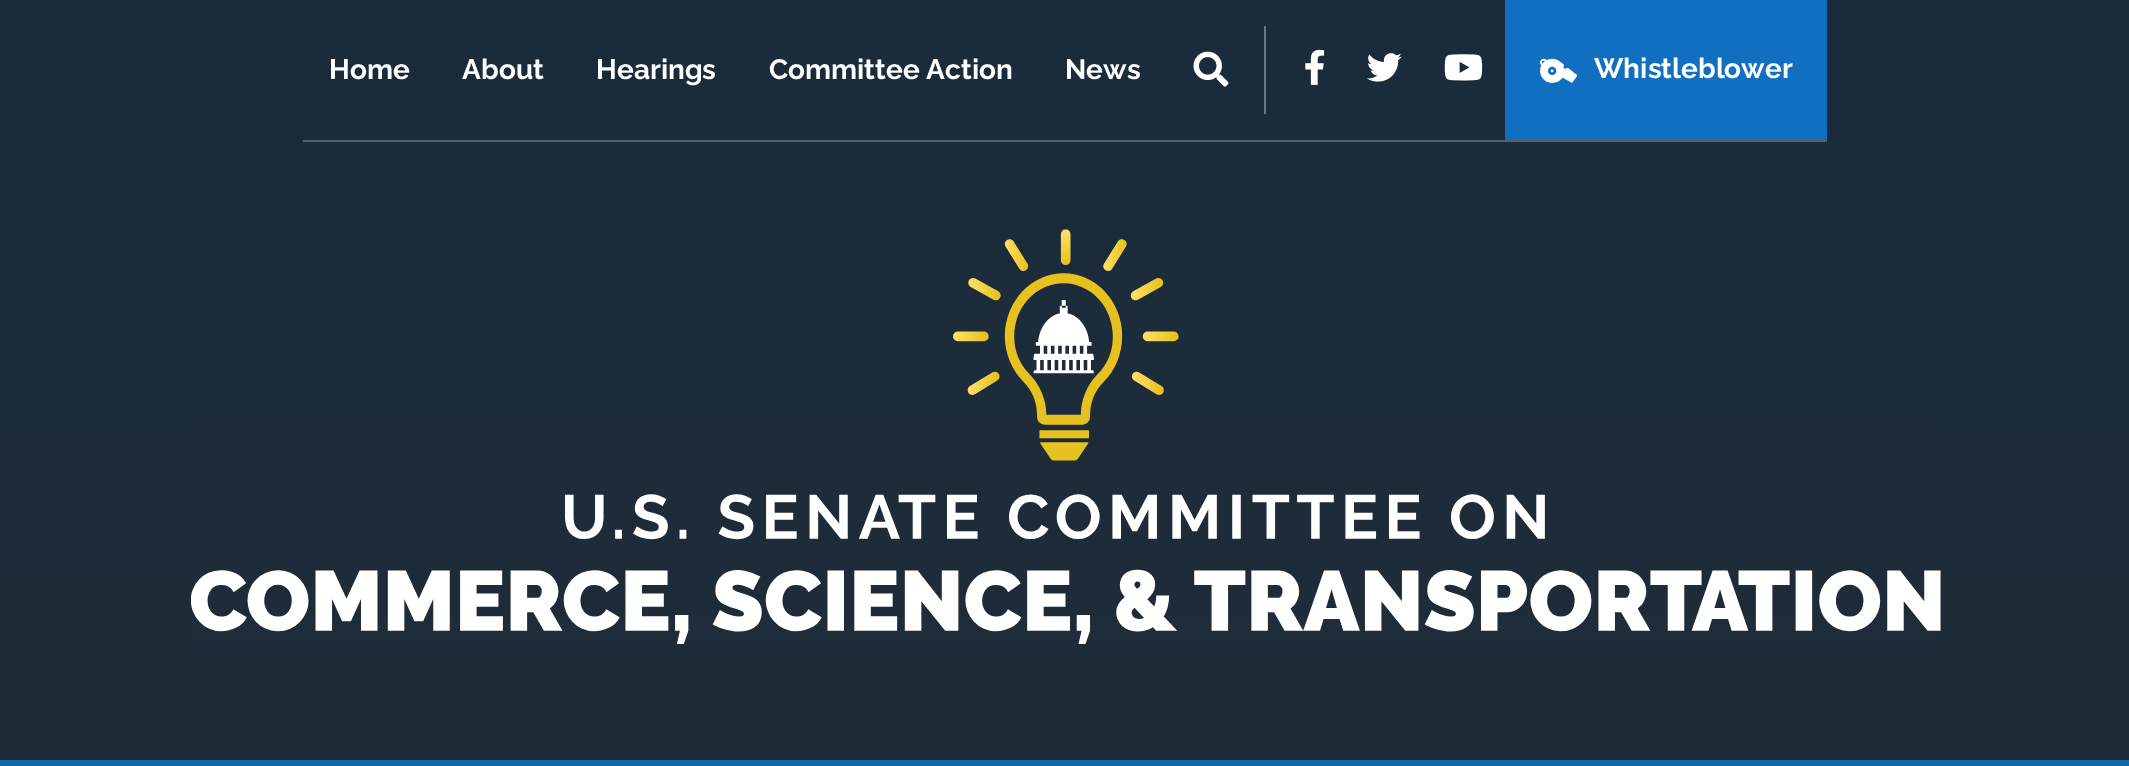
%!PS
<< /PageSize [2129 766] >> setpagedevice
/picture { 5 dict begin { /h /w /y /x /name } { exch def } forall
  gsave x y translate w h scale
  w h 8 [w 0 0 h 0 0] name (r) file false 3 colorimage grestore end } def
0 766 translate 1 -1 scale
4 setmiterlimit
1 setgray
0 0 2129 766 rectfill
gsave newpath 0 0 moveto 2129 0 lineto 2129 760 lineto 0 760 lineto closepath clip newpath
<< /ShadingType 2 /ColorSpace /DeviceRGB /Coords [1065 0 1065 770] /Extend [true true] /Function << /FunctionType 3 /Domain [0 1] /Functions [<< /FunctionType 2 /Domain [0 1] /C0 [0.102 0.169 0.235] /C1 [0.102 0.169 0.235] /N 1 >> << /FunctionType 2 /Domain [0 1] /C0 [0.102 0.169 0.235] /C1 [0.118 0.173 0.227] /N 1 >> << /FunctionType 2 /Domain [0 1] /C0 [0.118 0.173 0.227] /C1 [0.122 0.173 0.22] /N 1 >>] /Bounds [0.1 0.6] /Encode [0 1 0 1 0 1] >> >> shfill grestore
0.075 0.396 0.675 setrgbcolor
0 760 2129 6 rectfill
0.329 0.376 0.427 setrgbcolor
303 140 1524 2 rectfill
/Raleway-Bold [28 0 0 -28 0 0] selectfont
1 setgray
329 79 moveto (Home) show
462 79 moveto (About) show
596 79 moveto (Hearings) show
769 79 moveto (Committee Action) show
1065 79 moveto (News) show
0.416 0.459 0.502 setrgbcolor
1264 26 2 88 rectfill
(img1.rgb) 1193 51 36 36 picture
(img2.rgb) 1305 49 20 36 picture
(img3.rgb) 1367 53 35 29 picture
(img4.rgb) 1444 54 39 27 picture
0.067 0.435 0.757 setrgbcolor
1505 0 322 140 rectfill
(img5.rgb) 1540 58 37 25 picture
1 setgray
1594 78 moveto (Whistleblower) show
(img6.rgb) 191 229 1750 415 picture
showpage
